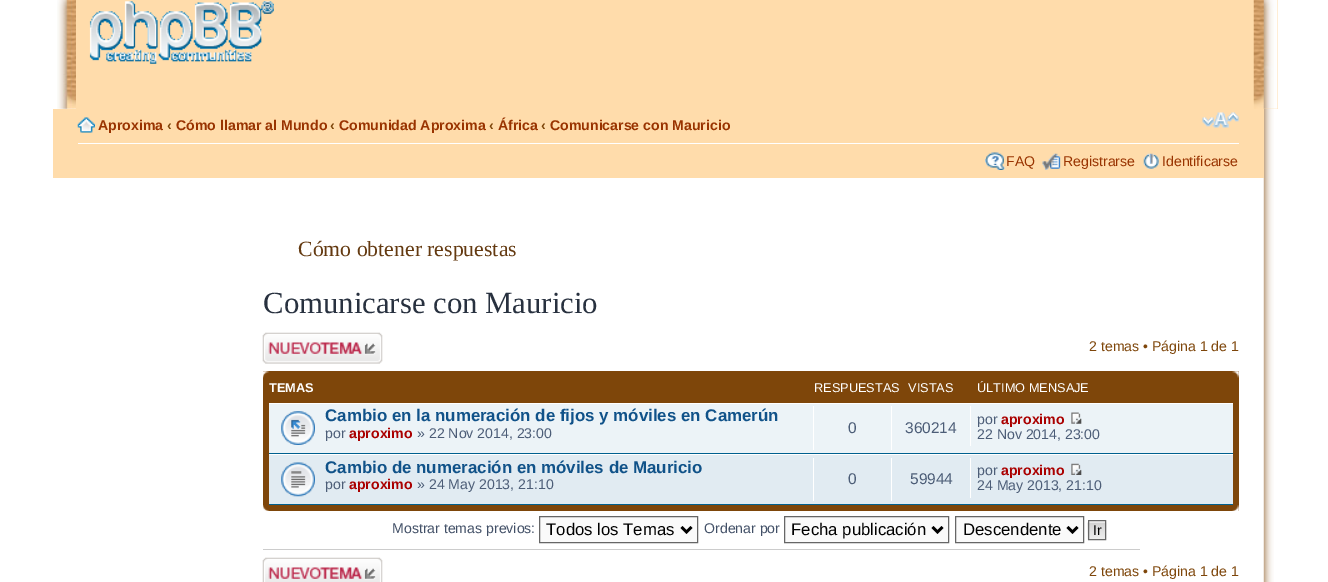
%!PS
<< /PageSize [1328 582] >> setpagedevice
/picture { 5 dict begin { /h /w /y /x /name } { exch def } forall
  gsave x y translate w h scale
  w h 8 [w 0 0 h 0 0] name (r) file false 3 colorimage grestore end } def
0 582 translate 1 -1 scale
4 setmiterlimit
1 setgray
0 0 1328 582 rectfill
(img1.rgb) 1263 109 11 473 picture
(img2.rgb) 57 0 19 109 picture
1 0.863 0.671 setrgbcolor
76 0 1202 109 rectfill
(img3.rgb) 89 1 185 63 picture
(img4.rgb) 1253 0 25 109 picture
53 109 1211 69 rectfill
1 setgray
78 143 1161 1 rectfill
(img5.rgb) 77 117 18 16 picture
/LiberationSans-Bold [14.1 0 0 -14.1 0 0] selectfont
0.6 0.2 0 setrgbcolor
98 130 moveto (Aproxima) show
0.494 0.275 0.039 setrgbcolor
167 130 moveto (‹) show
0.6 0.2 0 setrgbcolor
176 130 moveto (Cómo llamar al Mundo) show
0.494 0.275 0.039 setrgbcolor
330 130 moveto (‹) show
0.6 0.2 0 setrgbcolor
339 130 moveto (Comunidad Aproxima) show
0.494 0.275 0.039 setrgbcolor
489 130 moveto (‹) show
0.6 0.2 0 setrgbcolor
498 130 moveto (África) show
0.494 0.275 0.039 setrgbcolor
541 130 moveto (‹) show
0.6 0.2 0 setrgbcolor
550 130 moveto (Comunicarse con Mauricio) show
(img6.rgb) 1202 112 37 16 picture
(img7.rgb) 985 152 20 18 picture
/LiberationSans-Regular [14.1 0 0 -14.1 0 0] selectfont
1006 166 moveto (FAQ) show
(img8.rgb) 1042 153 19 17 picture
1063 166 moveto (Registrarse) show
(img9.rgb) 1143 153 16 16 picture
1162 166 moveto (Identificarse) show
/LiberationSerif-Regular [21.75 0 0 -21.75 0 0] selectfont
0.392 0.227 0.067 setrgbcolor
298 256 moveto (Cómo obtener respuestas) show
/LiberationSerif-Regular [30.75 0 0 -30.75 0 0] selectfont
0.157 0.192 0.247 setrgbcolor
263 313 moveto (Comunicarse con Mauricio) show
(img10.rgb) 262 332 121 32 picture
/LiberationSans-Regular [14.1 0 0 -14.1 0 0] selectfont
0.494 0.275 0.039 setrgbcolor
1089 351 moveto (2 temas • Página 1 de 1) show
263 371 976 140 rectfill
(img11.rgb) 263 371 6 7 picture
(img12.rgb) 1232 371 7 7 picture
/LiberationSans-Bold [12.75 0 0 -12.75 0 0] selectfont
1 setgray
269 392 moveto (TEMAS) show
/LiberationSans-Regular [12.75 0 0 -12.75 0 0] selectfont
814 392 moveto (RESPUESTAS) show
908 392 moveto (VISTAS) show
977 392 moveto (ÚLTIMO MENSAJE) show
0.925 0.953 0.969 setrgbcolor
269 404 964 49 rectfill
1 setgray
269 403 964 1 rectfill
0 0.376 0.561 setrgbcolor
269 453 964 1 rectfill
(img13.rgb) 281 411 34 34 picture
/LiberationSans-Bold [16.9 0 0 -16.9 0 0] selectfont
0.063 0.322 0.537 setrgbcolor
325 421 moveto (Cambio en la numeración de fijos y móviles en Camerún) show
/LiberationSans-Regular [14.1 0 0 -14.1 0 0] selectfont
0.298 0.365 0.467 setrgbcolor
325 438 moveto (por) show
/LiberationSans-Bold [14.1 0 0 -14.1 0 0] selectfont
0.667 0 0 setrgbcolor
349 438 moveto (aproximo) show
/LiberationSans-Regular [14.1 0 0 -14.1 0 0] selectfont
0.298 0.365 0.467 setrgbcolor
417 438 moveto (» 22 Nov 2014, 23:00) show
1 setgray
813 406 1 44 rectfill
/LiberationSans-Regular [15.5 0 0 -15.5 0 0] selectfont
0.298 0.365 0.467 setrgbcolor
848 433 moveto (0) show
1 setgray
891 406 1 44 rectfill
0.298 0.365 0.467 setrgbcolor
905 433 moveto (360214) show
1 setgray
970 406 1 40 rectfill
/LiberationSans-Regular [14.1 0 0 -14.1 0 0] selectfont
0.298 0.365 0.467 setrgbcolor
977 424 moveto (por) show
/LiberationSans-Bold [14.1 0 0 -14.1 0 0] selectfont
0.667 0 0 setrgbcolor
1001 424 moveto (aproximo) show
(img14.rgb) 1071 412 11 12 picture
/LiberationSans-Regular [14.1 0 0 -14.1 0 0] selectfont
0.298 0.365 0.467 setrgbcolor
977 439 moveto (22 Nov 2014, 23:00) show
0.882 0.922 0.949 setrgbcolor
269 455 964 49 rectfill
1 setgray
269 454 964 1 rectfill
0 0.376 0.561 setrgbcolor
269 504 964 1 rectfill
(img15.rgb) 281 462 34 35 picture
/LiberationSans-Bold [16.9 0 0 -16.9 0 0] selectfont
0.063 0.322 0.537 setrgbcolor
325 473 moveto (Cambio de numeración en móviles de Mauricio) show
/LiberationSans-Regular [14.1 0 0 -14.1 0 0] selectfont
0.298 0.365 0.467 setrgbcolor
325 489 moveto (por) show
/LiberationSans-Bold [14.1 0 0 -14.1 0 0] selectfont
0.667 0 0 setrgbcolor
349 489 moveto (aproximo) show
/LiberationSans-Regular [14.1 0 0 -14.1 0 0] selectfont
0.298 0.365 0.467 setrgbcolor
417 489 moveto (» 24 May 2013, 21:10) show
1 setgray
813 458 1 43 rectfill
/LiberationSans-Regular [15.5 0 0 -15.5 0 0] selectfont
0.298 0.365 0.467 setrgbcolor
848 484 moveto (0) show
1 setgray
891 458 1 43 rectfill
0.298 0.365 0.467 setrgbcolor
910 484 moveto (59944) show
1 setgray
970 458 1 40 rectfill
/LiberationSans-Regular [14.1 0 0 -14.1 0 0] selectfont
0.298 0.365 0.467 setrgbcolor
977 475 moveto (por) show
/LiberationSans-Bold [14.1 0 0 -14.1 0 0] selectfont
0.667 0 0 setrgbcolor
1001 475 moveto (aproximo) show
(img16.rgb) 1071 463 11 12 picture
/LiberationSans-Regular [14.1 0 0 -14.1 0 0] selectfont
0.298 0.365 0.467 setrgbcolor
977 490 moveto (24 May 2013, 21:10) show
(img17.rgb) 263 505 6 6 picture
(img18.rgb) 1232 505 7 6 picture
0.259 0.314 0.404 setrgbcolor
392 533 moveto (Mostrar temas previos:) show
0.98 setgray
newpath 539.5 516.5 moveto 697.5 516.5 lineto 697.5 542.5 lineto 539.5 542.5 lineto closepath gsave fill grestore
0.4 setgray
stroke
0 setgray
2.5 setlinewidth
newpath 681.5 527 moveto 686.5 532 lineto 691.5 527 lineto stroke
/LiberationSans-Regular [16.75 0 0 -16.75 0 0] selectfont
546 535 moveto (Todos los Temas) show
/LiberationSans-Regular [14.1 0 0 -14.1 0 0] selectfont
0.259 0.314 0.404 setrgbcolor
704 533 moveto (Ordenar por) show
0.98 setgray
newpath 784.5 516.5 moveto 948.5 516.5 lineto 948.5 542.5 lineto 784.5 542.5 lineto closepath gsave fill grestore
0.4 setgray
1 setlinewidth
stroke
0 setgray
2.5 setlinewidth
newpath 932.5 527 moveto 937.5 532 lineto 942.5 527 lineto stroke
/LiberationSans-Regular [16.75 0 0 -16.75 0 0] selectfont
791 535 moveto (Fecha publicación) show
0.98 setgray
newpath 955.5 516.5 moveto 1083.5 516.5 lineto 1083.5 542.5 lineto 955.5 542.5 lineto closepath gsave fill grestore
0.4 setgray
1 setlinewidth
stroke
0 setgray
2.5 setlinewidth
newpath 1067.5 527 moveto 1072.5 532 lineto 1077.5 527 lineto stroke
963 535 moveto (Descendente) show
0.98 setgray
1089 521 16 1 rectfill
(img19.rgb) 1087 522 20 18 picture
0.4 setgray
1 setlinewidth
1088.5 520.5 17 19 rectstroke
/LiberationSans-Regular [14.1 0 0 -14.1 0 0] selectfont
0 setgray
1093 535 moveto (Ir) show
0.8 setgray
263 549 877 1 rectfill
(img20.rgb) 262 557 121 25 picture
0.494 0.275 0.039 setrgbcolor
1089 576 moveto (2 temas • Página 1 de 1) show
showpage
